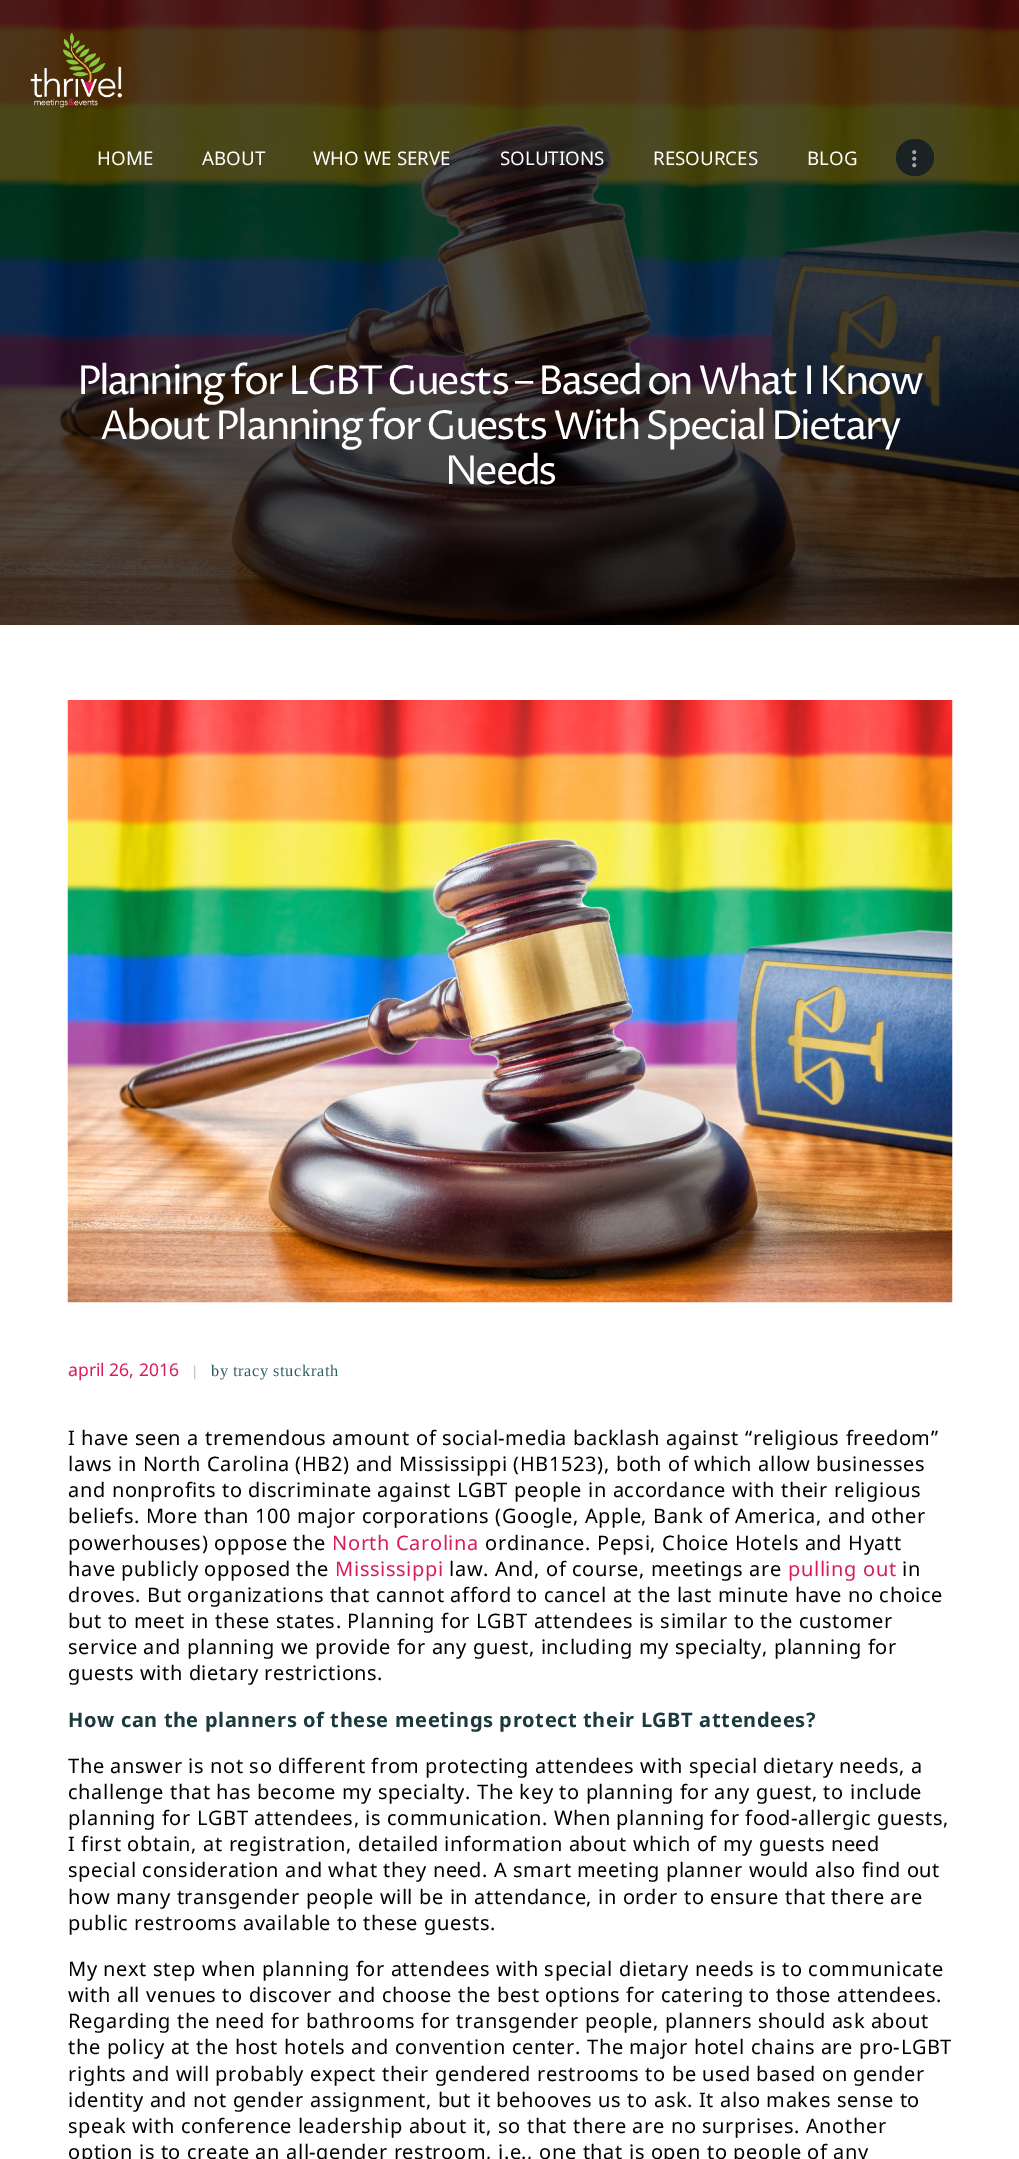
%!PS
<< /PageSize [1019 2159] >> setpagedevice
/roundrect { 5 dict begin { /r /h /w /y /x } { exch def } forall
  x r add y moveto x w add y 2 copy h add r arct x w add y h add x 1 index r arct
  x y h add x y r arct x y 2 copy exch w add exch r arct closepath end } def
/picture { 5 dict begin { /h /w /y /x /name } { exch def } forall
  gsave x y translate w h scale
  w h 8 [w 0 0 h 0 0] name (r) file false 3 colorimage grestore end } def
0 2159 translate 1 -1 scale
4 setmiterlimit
1 setgray
0 0 1019 2159 rectfill
(img1.rgb) 0 0 1019 625 picture
(img2.rgb) 30 32 92 76 picture
/NotoSans-Regular [18.75 0 0 -18.75 0 0] selectfont
97 165 moveto (HOME) show
202 165 moveto (ABOUT) show
313 165 moveto (WHO WE SERVE) show
500 165 moveto (SOLUTIONS) show
653 165 moveto (RESOURCES) show
807 165 moveto (BLOG) show
0.102 0.133 0.137 setrgbcolor
896 139 38 37 18.5 roundrect fill
(img3.rgb) 912 150 5 18 picture
/ProzaLibre-Regular [40 0 0 -40 0 0] selectfont
1 setgray
77 394 moveto -2.45 0 (Planning for LGBT Guests – Based on What I Know) ashow
100 439 moveto -2.45 0 (About Planning for Guests With Special Dietary) ashow
445 484 moveto -2.45 0 (Needs) ashow
(img4.rgb) 67 700 886 603 picture
/NotoSans-Regular [17.5 0 0 -17.5 0 0] selectfont
0.847 0.11 0.361 setrgbcolor
68 1376 moveto (april 26, 2016) show
/NotoSans-Regular [14 0 0 -14 0 0] selectfont
0.643 0.725 0.733 setrgbcolor
191 1376 moveto (|) show
/LiberationSerif-Regular [16.25 0 0 -16.25 0 0] selectfont
0.176 0.369 0.392 setrgbcolor
211 1376 moveto 0.62 0 (by tracy stuckrath) ashow
/NotoSans-Regular [20 0 0 -20 0 0] selectfont
0 setgray
68 1445 moveto 0.62 0 (I have seen a tremendous amount of social-media backlash against “religious freedom”) ashow
68 1471 moveto 0.62 0 (laws in North Carolina \(HB2\) and Mississippi \(HB1523\), both of which allow businesses) ashow
68 1497 moveto 0.62 0 (and nonprofits to discriminate against LGBT people in accordance with their religious) ashow
68 1523 moveto 0.62 0 (beliefs. More than 100 major corporations \(Google, Apple, Bank of America, and other) ashow
68 1550 moveto 0.62 0 (powerhouses\) oppose the) ashow
0.847 0.11 0.361 setrgbcolor
332 1550 moveto 0.62 0 (North Carolina) ashow
0 setgray
485 1550 moveto 0.62 0 (ordinance. Pepsi, Choice Hotels and Hyatt) ashow
68 1576 moveto 0.62 0 (have publicly opposed the) ashow
0.847 0.11 0.361 setrgbcolor
335 1576 moveto 0.62 0 (Mississippi) ashow
0 setgray
449 1576 moveto 0.62 0 (law. And, of course, meetings are) ashow
0.847 0.11 0.361 setrgbcolor
788 1576 moveto 0.62 0 (pulling out) ashow
0 setgray
902 1576 moveto 0.62 0 (in) ashow
68 1602 moveto 0.62 0 (droves. But organizations that cannot afford to cancel at the last minute have no choice) ashow
68 1628 moveto 0.62 0 (but to meet in these states. Planning for LGBT attendees is similar to the customer) ashow
68 1654 moveto 0.62 0 (service and planning we provide for any guest, including my specialty, planning for) ashow
68 1680 moveto 0.62 0 (guests with dietary restrictions.) ashow
/NotoSans-Bold [20 0 0 -20 0 0] selectfont
0.11 0.224 0.239 setrgbcolor
68 1727 moveto 0.62 0 (How can the planners of these meetings protect their LGBT attendees?) ashow
/NotoSans-Regular [20 0 0 -20 0 0] selectfont
0 setgray
68 1773 moveto 0.62 0 (The answer is not so different from protecting attendees with special dietary needs, a) ashow
68 1799 moveto 0.62 0 (challenge that has become my specialty. The key to planning for any guest, to include) ashow
68 1825 moveto 0.62 0 (planning for LGBT attendees, is communication. When planning for food-allergic guests,) ashow
68 1851 moveto 0.62 0 (I first obtain, at registration, detailed information about which of my guests need) ashow
68 1877 moveto 0.62 0 (special consideration and what they need. A smart meeting planner would also find out) ashow
68 1904 moveto 0.62 0 (how many transgender people will be in attendance, in order to ensure that there are) ashow
68 1930 moveto 0.62 0 (public restrooms available to these guests.) ashow
68 1976 moveto 0.62 0 (My next step when planning for attendees with special dietary needs is to communicate) ashow
68 2002 moveto 0.62 0 (with all venues to discover and choose the best options for catering to those attendees.) ashow
68 2028 moveto 0.62 0 (Regarding the need for bathrooms for transgender people, planners should ask about) ashow
68 2054 moveto 0.62 0 (the policy at the host hotels and convention center. The major hotel chains are pro-LGBT) ashow
68 2081 moveto 0.62 0 (rights and will probably expect their gendered restrooms to be used based on gender) ashow
68 2107 moveto 0.62 0 (identity and not gender assignment, but it behooves us to ask. It also makes sense to) ashow
68 2133 moveto 0.62 0 (speak with conference leadership about it, so that there are no surprises. Another) ashow
68 2159 moveto 0.62 0 (option is to create an all-gender restroom, i.e., one that is open to people of any) ashow
showpage
